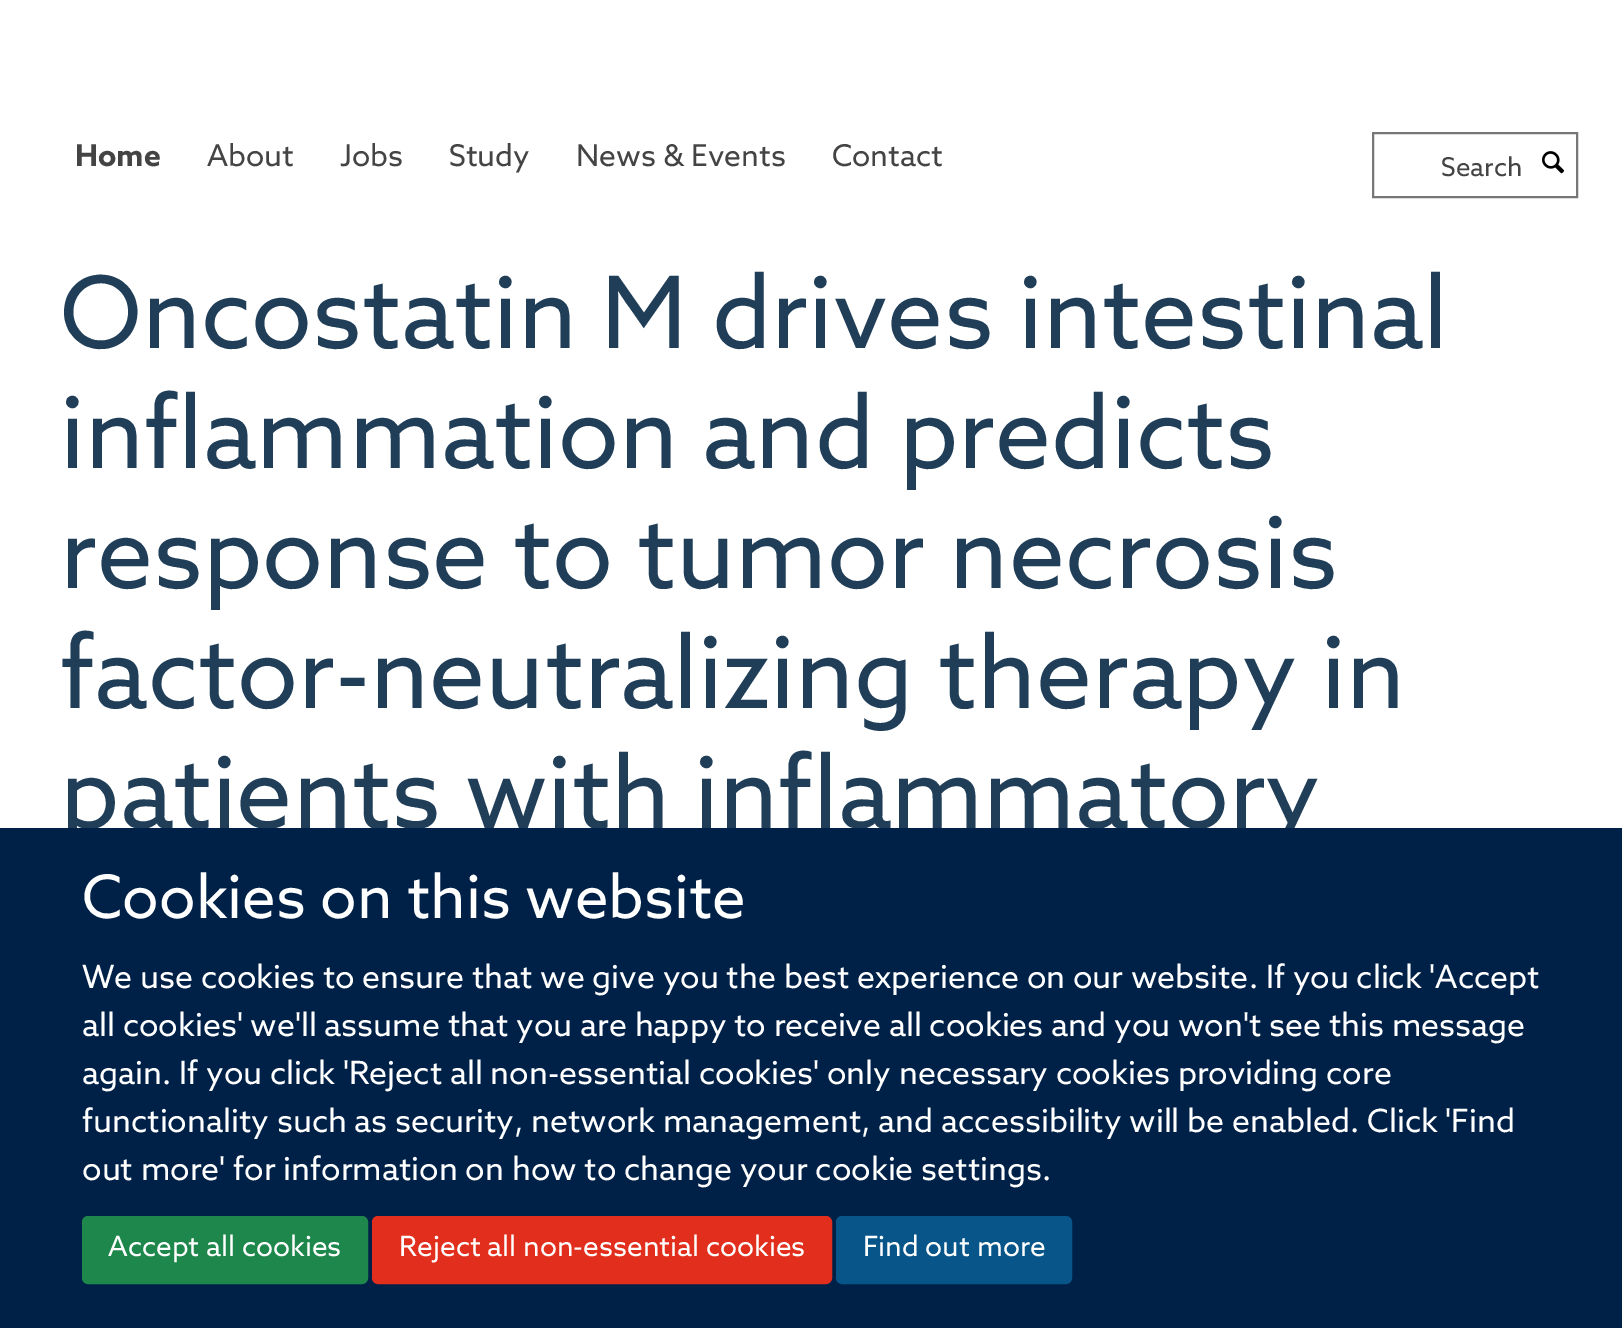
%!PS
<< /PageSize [1622 1328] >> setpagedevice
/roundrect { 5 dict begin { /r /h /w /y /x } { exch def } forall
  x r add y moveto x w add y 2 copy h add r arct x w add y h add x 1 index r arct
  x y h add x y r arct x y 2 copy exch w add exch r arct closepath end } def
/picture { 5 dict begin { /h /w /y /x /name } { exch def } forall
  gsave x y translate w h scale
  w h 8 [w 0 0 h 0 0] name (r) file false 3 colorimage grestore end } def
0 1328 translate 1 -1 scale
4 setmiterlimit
1 setgray
0 0 1622 1328 rectfill
/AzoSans-Bold [30 0 0 -30 0 0] selectfont
0.267 setgray
75 166 moveto (Home) show
/AzoSans-Regular [30 0 0 -30 0 0] selectfont
207 166 moveto (About) show
340 166 moveto (Jobs) show
449 166 moveto (Study) show
576 166 moveto (News & Events) show
832 166 moveto (Contact) show
0.467 setgray
2 setlinewidth
1373 133 204 64 rectstroke
/AzoSans-Regular [26 0 0 -26 0 0] selectfont
0.267 setgray
1441 176 moveto (Search) show
(img1.rgb) 1542 151 23 23 picture
/AzoSans-Regular [100 0 0 -100 0 0] selectfont
0.125 0.243 0.345 setrgbcolor
60 348 moveto (Oncostatin M drives intestinal) show
60 468 moveto (inflammation and predicts) show
60 588 moveto (response to tumor necrosis) show
60 708 moveto (factor-neutralizing therapy in) show
60 828 moveto (patients with inflammatory) show
0 0.129 0.278 setrgbcolor
0 828 1622 500 rectfill
/AzoSans-Regular [60 0 0 -60 0 0] selectfont
1 setgray
82 918 moveto (Cookies on this website) show
/AzoSans-Regular [32 0 0 -32 0 0] selectfont
82 988 moveto (We use cookies to ensure that we give you the best experience on our website. If you click 'Accept) show
82 1036 moveto (all cookies' we'll assume that you are happy to receive all cookies and you won't see this message) show
82 1084 moveto (again. If you click 'Reject all non-essential cookies' only necessary cookies providing core) show
82 1132 moveto (functionality such as security, network management, and accessibility will be enabled. Click 'Find) show
82 1180 moveto (out more' for information on how to change your cookie settings.) show
0.118 0.529 0.294 setrgbcolor
83 1217 284 66 5 roundrect gsave fill grestore
stroke
/AzoSans-Regular [28 0 0 -28 0 0] selectfont
1 setgray
108 1256 moveto (Accept all cookies) show
0.886 0.18 0.11 setrgbcolor
373 1217 458 66 5 roundrect gsave fill grestore
stroke
1 setgray
399 1256 moveto (Reject all non-essential cookies) show
0.031 0.333 0.537 setrgbcolor
837 1217 234 66 5 roundrect gsave fill grestore
stroke
1 setgray
863 1256 moveto (Find out more) show
showpage
